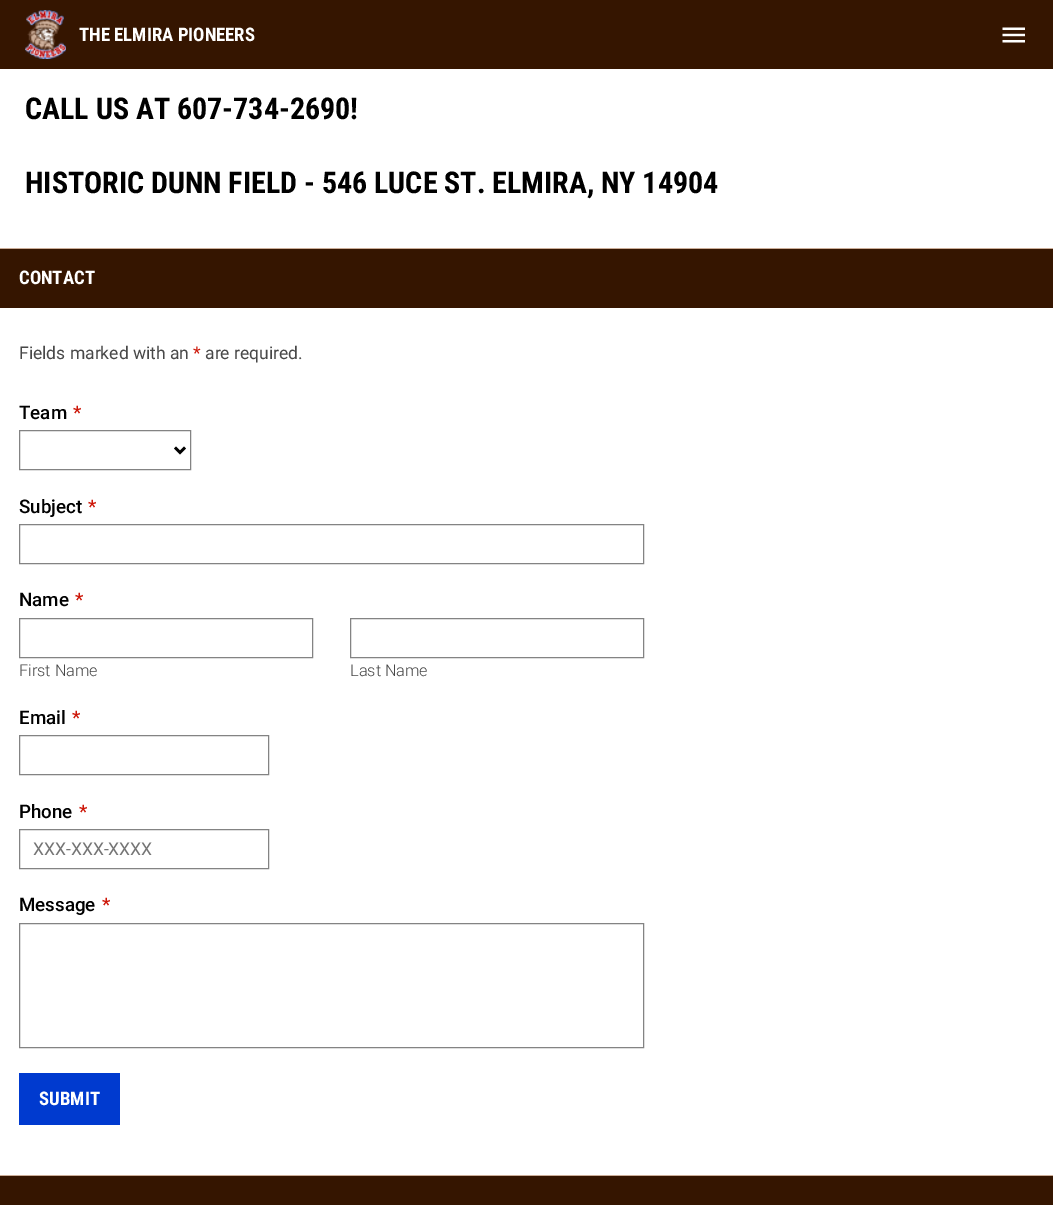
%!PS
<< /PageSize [1053 1205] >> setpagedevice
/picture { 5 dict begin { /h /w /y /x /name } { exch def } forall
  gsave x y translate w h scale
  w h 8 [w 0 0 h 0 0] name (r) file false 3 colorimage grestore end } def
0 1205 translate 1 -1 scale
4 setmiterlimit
1 setgray
0 0 1053 1205 rectfill
0.208 0.082 0 setrgbcolor
0 0 1053 69 rectfill
(img1.rgb) 25 10 41 49 picture
/RobotoCondensed-Bold [18.75 0 0 -18.75 0 0] selectfont
1 setgray
79 41 moveto (THE ELMIRA PIONEERS) show
(img2.rgb) 1002 27 23 16 picture
/RobotoCondensed-Bold [30 0 0 -30 0 0] selectfont
0 setgray
25 119 moveto (CALL US AT 607-734-2690!) show
25 193 moveto (HISTORIC DUNN FIELD - 546 LUCE ST. ELMIRA, NY 14904) show
0.208 0.082 0 setrgbcolor
0 249 1053 59 rectfill
0.796 0.678 0.596 setrgbcolor
0 248 1053 1 rectfill
/RobotoCondensed-Bold [18.75 0 0 -18.75 0 0] selectfont
1 setgray
19 284 moveto (CONTACT) show
/Roboto-Regular [17.5 0 0 -17.5 0 0] selectfont
0.282 setgray
19 359 moveto (Fields marked with an) show
0.804 0.086 0.031 setrgbcolor
193 359 moveto (*) show
0.282 setgray
205 359 moveto (are required.) show
/Roboto-Medium [18.75 0 0 -18.75 0 0] selectfont
0 setgray
19 419 moveto (Team) show
0.804 0.086 0.031 setrgbcolor
73 419 moveto (*) show
0.514 setgray
19.5 430.5 171 39 rectstroke
0 setgray
2.5 setlinewidth
newpath 175 447.5 moveto 180 452.5 lineto 185 447.5 lineto stroke
19 513 moveto (Subject) show
0.804 0.086 0.031 setrgbcolor
88 513 moveto (*) show
0.514 setgray
1 setlinewidth
19.5 524.5 624 39 rectstroke
0 setgray
19 606 moveto (Name) show
0.804 0.086 0.031 setrgbcolor
75 606 moveto (*) show
0.514 setgray
19.5 618.5 293 39 rectstroke
/Roboto-Light [16.25 0 0 -16.25 0 0] selectfont
0.282 setgray
19 676 moveto (First Name) show
0.514 setgray
350.5 618.5 293 39 rectstroke
0.282 setgray
350 676 moveto (Last Name) show
/Roboto-Medium [18.75 0 0 -18.75 0 0] selectfont
0 setgray
19 724 moveto (Email) show
0.804 0.086 0.031 setrgbcolor
72 724 moveto (*) show
0.514 setgray
19.5 735.5 249 39 rectstroke
0 setgray
19 818 moveto (Phone) show
0.804 0.086 0.031 setrgbcolor
79 818 moveto (*) show
0.514 setgray
19.5 829.5 249 39 rectstroke
/Roboto-Regular [17.5 0 0 -17.5 0 0] selectfont
0.459 setgray
33 855 moveto (XXX-XXX-XXXX) show
/Roboto-Medium [18.75 0 0 -18.75 0 0] selectfont
0 setgray
19 911 moveto (Message) show
0.804 0.086 0.031 setrgbcolor
102 911 moveto (*) show
0.514 setgray
19.5 923.5 624 124 rectstroke
0 0.227 0.812 setrgbcolor
19 1073 101 52 rectfill
/RobotoCondensed-Bold [18.75 0 0 -18.75 0 0] selectfont
1 setgray
39 1105 moveto (SUBMIT) show
0.208 0.082 0 setrgbcolor
0 1176 1053 29 rectfill
0.796 0.678 0.596 setrgbcolor
0 1175 1053 1 rectfill
showpage
